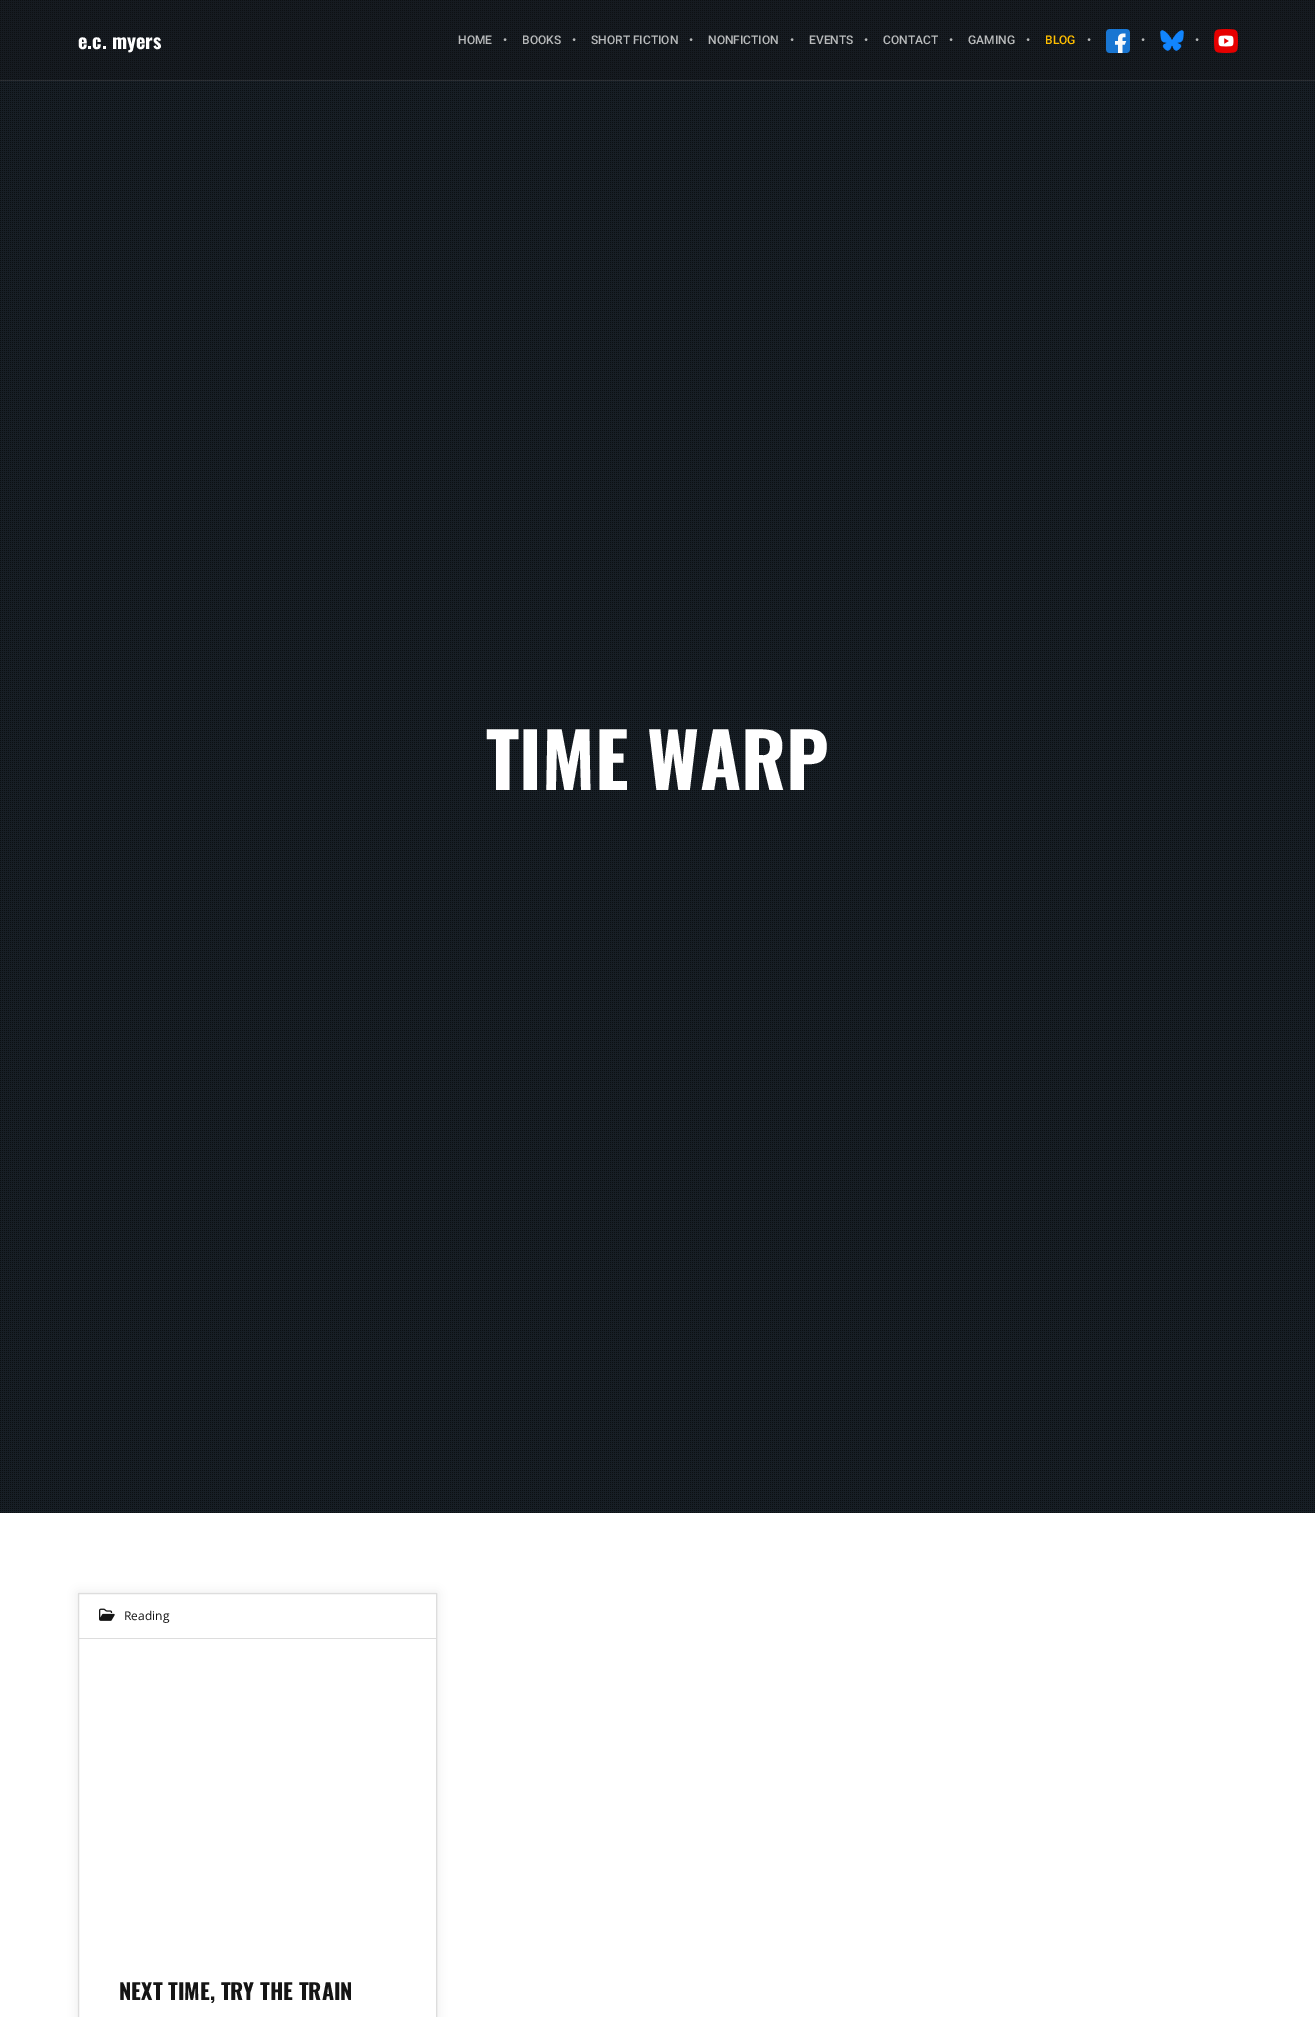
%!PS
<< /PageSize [1315 2017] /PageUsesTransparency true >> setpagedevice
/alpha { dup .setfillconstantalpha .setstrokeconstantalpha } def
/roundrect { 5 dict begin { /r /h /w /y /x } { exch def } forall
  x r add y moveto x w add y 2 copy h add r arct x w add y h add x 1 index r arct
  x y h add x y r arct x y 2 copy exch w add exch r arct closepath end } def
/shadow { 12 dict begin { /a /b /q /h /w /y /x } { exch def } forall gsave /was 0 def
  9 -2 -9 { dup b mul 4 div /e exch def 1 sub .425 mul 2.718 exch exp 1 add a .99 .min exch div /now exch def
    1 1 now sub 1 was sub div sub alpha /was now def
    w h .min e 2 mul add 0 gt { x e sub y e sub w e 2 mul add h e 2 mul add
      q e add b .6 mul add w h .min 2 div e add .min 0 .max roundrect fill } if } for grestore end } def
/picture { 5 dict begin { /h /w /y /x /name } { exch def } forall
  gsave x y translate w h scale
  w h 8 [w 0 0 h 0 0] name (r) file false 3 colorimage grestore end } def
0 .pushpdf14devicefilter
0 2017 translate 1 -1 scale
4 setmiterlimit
1 setgray
0 0 1315 2017 rectfill
0.125 0.165 0.204 setrgbcolor
0 0 1315 1513 rectfill
(img4.rgb) 0 0 1315 1513 picture
0.25 alpha
0.075 0.078 0.086 setrgbcolor
0 0 1315 81 rectfill
0.1 alpha
1 setgray
0 80 1315 1 rectfill
/Oswald-Bold [20 0 0 -20 0 0] selectfont
1 alpha
78 49 moveto (e.c. myers) show
/Roboto-Medium [12 0 0 -12 0 0] selectfont
0.722 0.729 0.733 setrgbcolor
458 44 moveto (HOME) show
503 44 moveto (•) show
522 44 moveto (BOOKS) show
572 44 moveto (•) show
591 44 moveto (SHORT FICTION) show
689 44 moveto (•) show
708 44 moveto (NONFICTION) show
790 44 moveto (•) show
809 44 moveto (EVENTS) show
864 44 moveto (•) show
883 44 moveto (CONTACT) show
949 44 moveto (•) show
968 44 moveto (GAMING) show
1026 44 moveto (•) show
1 0.749 0 setrgbcolor
1045 44 moveto (BLOG) show
0.722 0.729 0.733 setrgbcolor
1087 44 moveto (•) show
(img1.rgb) 1106 29 24 24 picture
1141 44 moveto (•) show
(img2.rgb) 1160 30 24 21 picture
1195 44 moveto (•) show
(img3.rgb) 1214 29 24 24 picture
/Oswald-Bold [75 0 0 -75 0 0] selectfont
1 setgray
486 790 moveto (TIME WARP) show
gsave
newpath 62 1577 moveto 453 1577 lineto 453 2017 lineto 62 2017 lineto closepath 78 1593 moveto 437 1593 lineto 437 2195 lineto 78 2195 lineto closepath eoclip newpath
0 setgray
78 1593 359 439 0 5 0.09 shadow
grestore
0.867 setgray
78.5 1593.5 358 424 rectstroke
79 1638 357 1 rectfill
(img5.rgb) 99 1608 16 13 picture
/OpenSans-Regular [12 0 0 -12 0 0] selectfont
0.082 setgray
124 1620 moveto (Reading) show
/Oswald-Bold [22 0 0 -22 0 0] selectfont
119 2000 moveto (NEXT TIME, TRY THE TRAIN) show
.poppdf14devicefilter showpage
